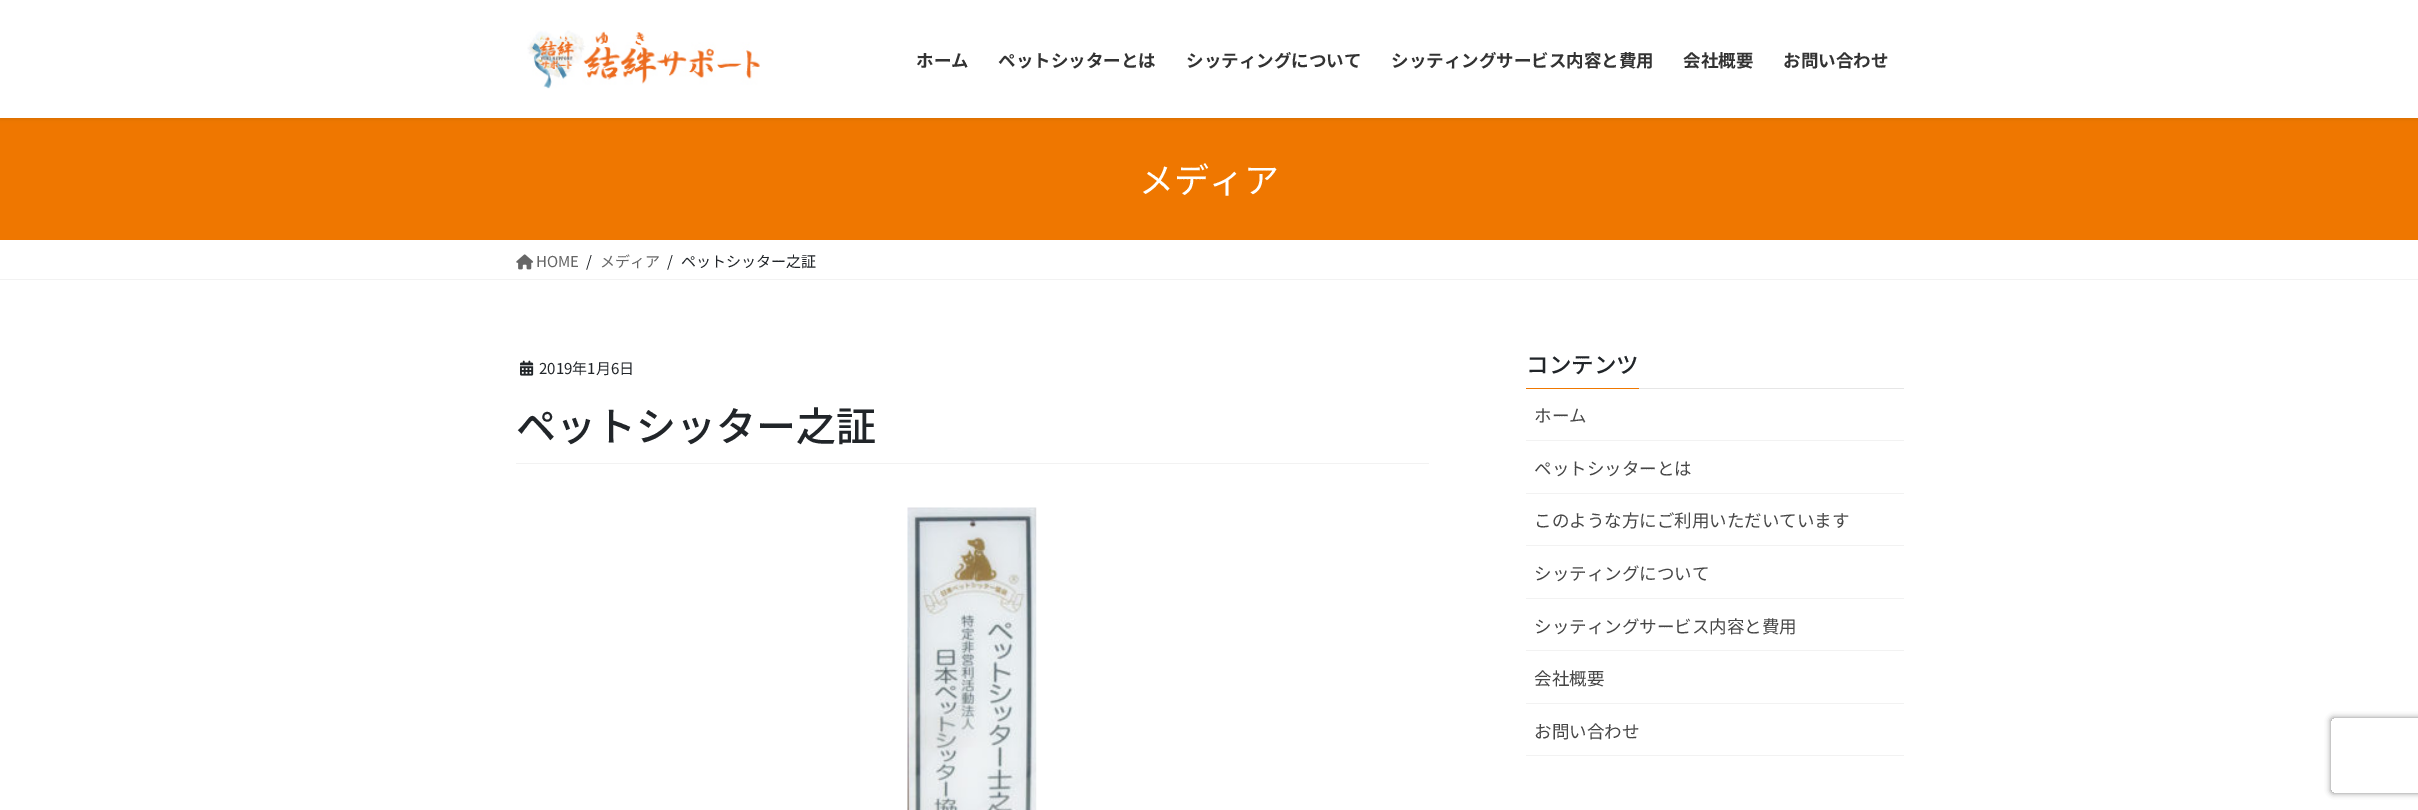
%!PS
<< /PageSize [2418 810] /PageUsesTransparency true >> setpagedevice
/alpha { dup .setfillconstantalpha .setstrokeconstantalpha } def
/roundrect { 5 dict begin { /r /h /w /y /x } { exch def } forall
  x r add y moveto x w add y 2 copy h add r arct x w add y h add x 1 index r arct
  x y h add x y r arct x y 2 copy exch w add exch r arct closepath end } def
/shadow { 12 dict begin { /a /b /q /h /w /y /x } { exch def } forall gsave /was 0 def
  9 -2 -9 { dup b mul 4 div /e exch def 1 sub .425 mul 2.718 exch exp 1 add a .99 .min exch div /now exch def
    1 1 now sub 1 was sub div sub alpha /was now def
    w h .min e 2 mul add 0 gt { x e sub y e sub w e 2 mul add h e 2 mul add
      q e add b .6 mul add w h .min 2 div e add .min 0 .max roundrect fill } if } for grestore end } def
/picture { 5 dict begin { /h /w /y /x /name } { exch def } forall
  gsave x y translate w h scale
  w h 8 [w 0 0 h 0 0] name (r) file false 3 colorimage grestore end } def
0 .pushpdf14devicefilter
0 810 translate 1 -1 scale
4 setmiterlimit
1 setgray
0 0 2418 810 rectfill
0.937 0.467 0 setrgbcolor
0 118 2418 122 rectfill
0 setgray
0 1 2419 118 0 2 0.1 shadow
1 setgray
0 0 2418 118 rectfill
(img1.rgb) 527 30 233 59 picture
/NotoSansJP-Bold [17.5 0 0 -17.5 0 0] selectfont
0.2 setgray
916 67 moveto (ホーム) show
998 67 moveto (ペットシッターとは) show
1186 67 moveto (シッティングについて) show
1391 67 moveto (シッティングサービス内容と費用) show
1683 67 moveto (会社概要) show
1783 67 moveto (お問い合わせ) show
/NotoSansJP-Regular [35 0 0 -35 0 0] selectfont
1 setgray
1139 193 moveto (メディア) show
0.949 setgray
0 279 2418 1 rectfill
(img2.rgb) 516 254 18 16 picture
/NotoSansJP-Regular [15 0 0 -15 0 0] selectfont
0.4 setgray
536 267 moveto (HOME) show
0.129 0.145 0.161 setrgbcolor
586 267 moveto (/) show
0.4 setgray
600 267 moveto (メディア) show
0.129 0.145 0.161 setrgbcolor
667 267 moveto (/) show
681 267 moveto (ペットシッター之証) show
0.949 setgray
516 463 913 1 rectfill
(img3.rgb) 520 360 14 16 picture
0.129 0.145 0.161 setrgbcolor
539 374 moveto (2019年1月6日) show
/NotoSansJP-Medium [40 0 0 -40 0 0] selectfont
516 441 moveto (ペットシッター之証) show
(img4.rgb) 907 507 130 303 picture
0.902 setgray
1639 388 265 1 rectfill
/NotoSansJP-Medium [22.5 0 0 -22.5 0 0] selectfont
0.129 0.145 0.161 setrgbcolor
1526 373 moveto (コンテンツ) show
0.937 0.467 0 setrgbcolor
1526 388 113 1 rectfill
0.949 setgray
1526 440 378 1 rectfill
/NotoSansJP-Regular [17.5 0 0 -17.5 0 0] selectfont
0.275 setgray
1534 422 moveto (ホーム) show
0.949 setgray
1526 493 378 1 rectfill
0.275 setgray
1534 475 moveto (ペットシッターとは) show
0.949 setgray
1526 545 378 1 rectfill
0.275 setgray
1534 527 moveto (このような方にご利用いただいています) show
0.949 setgray
1526 598 378 1 rectfill
0.275 setgray
1534 580 moveto (シッティングについて) show
0.949 setgray
1526 650 378 1 rectfill
0.275 setgray
1534 633 moveto (シッティングサービス内容と費用) show
0.949 setgray
1526 703 378 1 rectfill
0.275 setgray
1534 685 moveto (会社概要) show
0.949 setgray
1526 755 378 1 rectfill
0.275 setgray
1534 738 moveto (お問い合わせ) show
gsave
newpath 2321 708 moveto 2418 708 lineto 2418 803 lineto 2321 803 lineto closepath 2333.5 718 moveto 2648.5 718 lineto 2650 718 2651 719 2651 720.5 curveto 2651 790.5 lineto 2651 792 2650 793 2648.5 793 curveto 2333.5 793 lineto 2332 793 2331 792 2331 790.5 curveto 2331 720.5 lineto 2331 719 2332 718 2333.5 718 curveto closepath eoclip newpath
0.502 setgray
2331 718 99 75 2.5 3 1 shadow
grestore
.poppdf14devicefilter showpage
